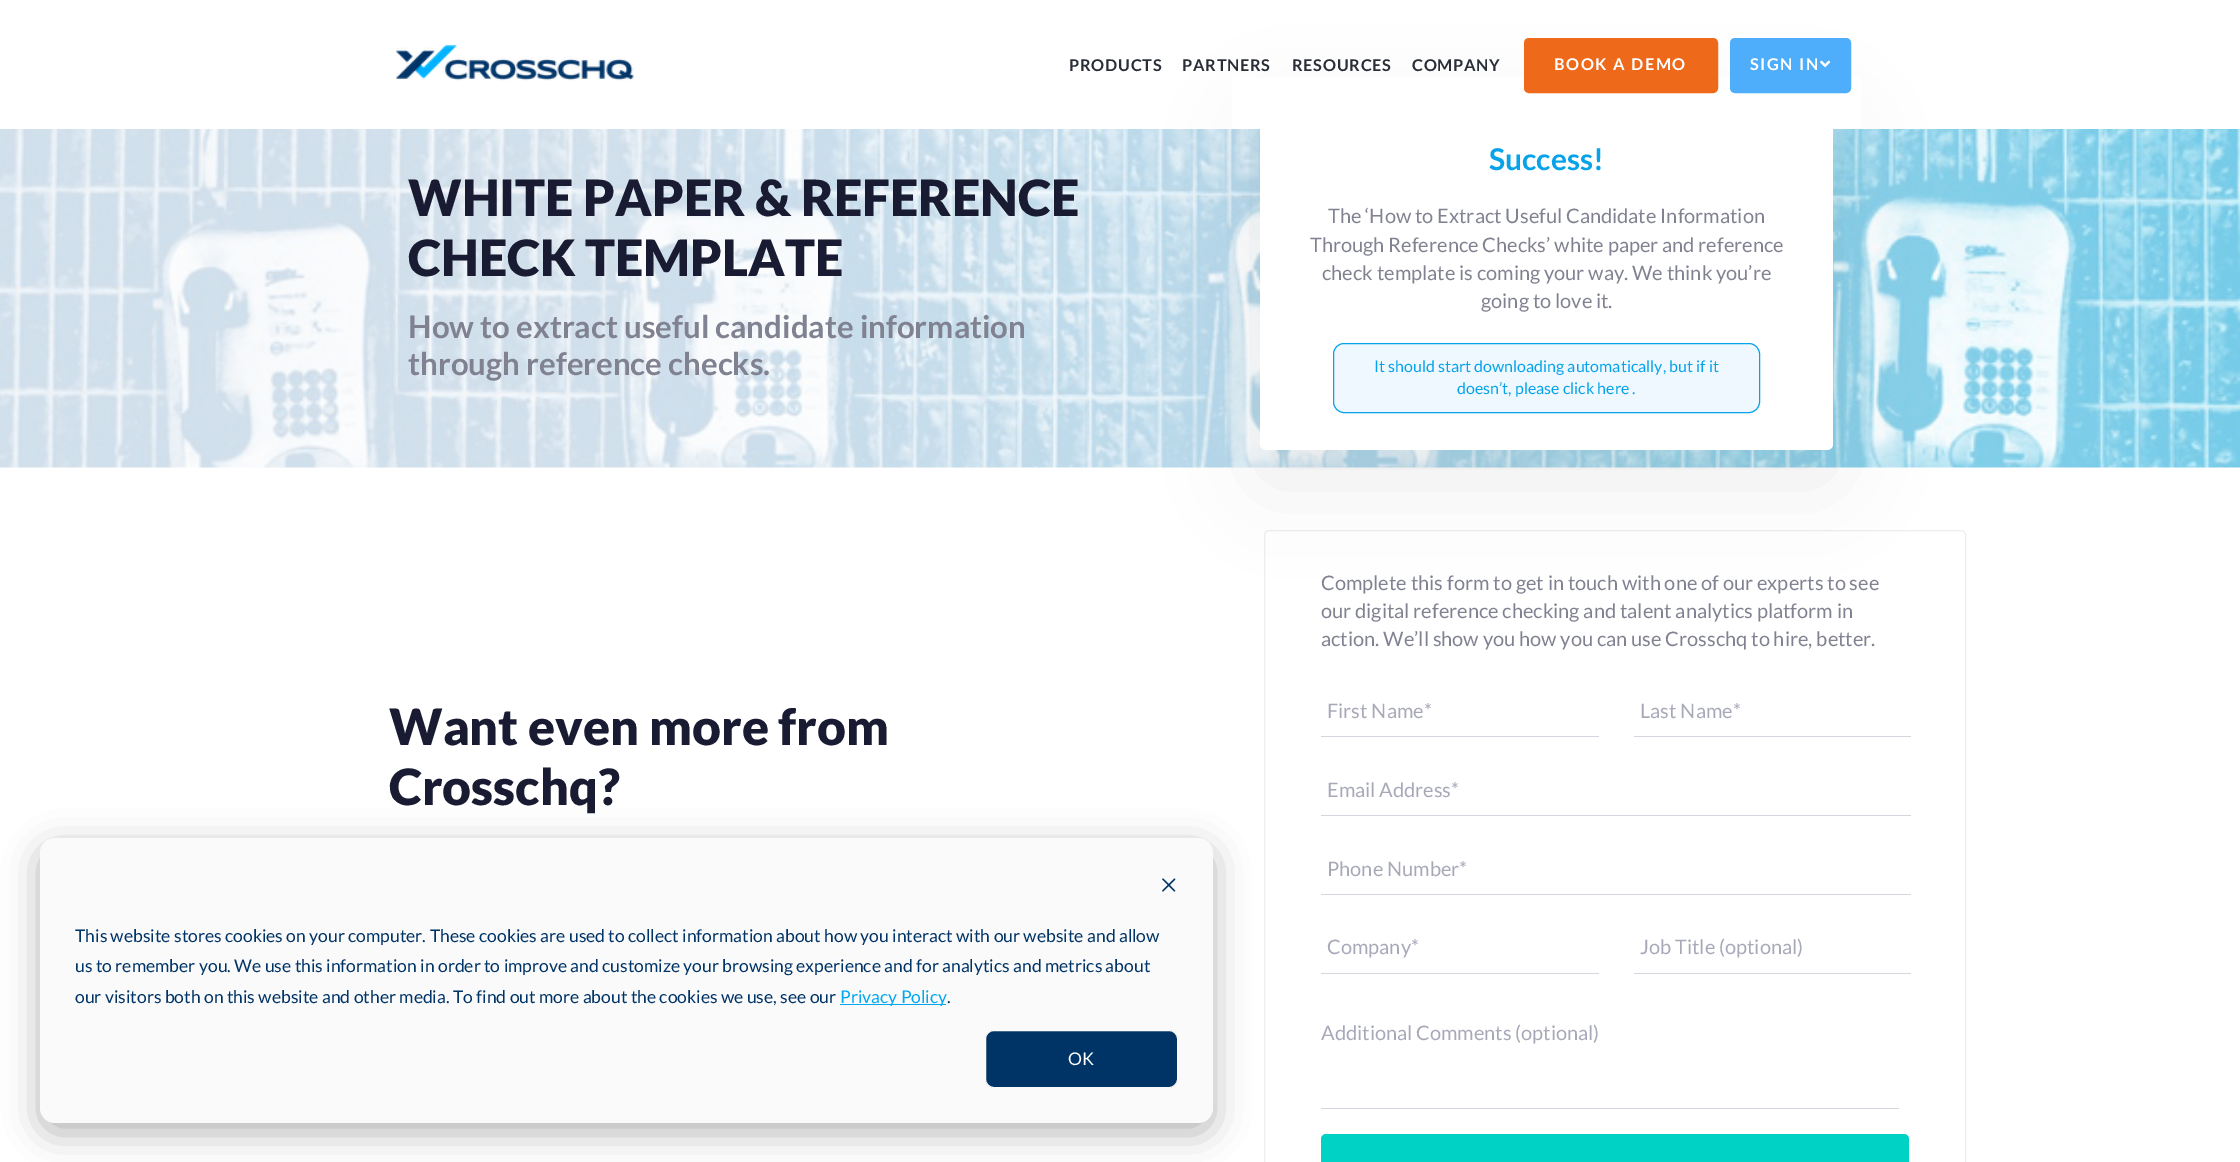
%!PS
<< /PageSize [2240 1162] /PageUsesTransparency true >> setpagedevice
/alpha { dup .setfillconstantalpha .setstrokeconstantalpha } def
/roundrect { 5 dict begin { /r /h /w /y /x } { exch def } forall
  x r add y moveto x w add y 2 copy h add r arct x w add y h add x 1 index r arct
  x y h add x y r arct x y 2 copy exch w add exch r arct closepath end } def
/shadow { 12 dict begin { /a /b /q /h /w /y /x } { exch def } forall gsave /was 0 def
  9 -2 -9 { dup b mul 4 div /e exch def 1 sub .425 mul 2.718 exch exp 1 add a .99 .min exch div /now exch def
    1 1 now sub 1 was sub div sub alpha /was now def
    w h .min e 2 mul add 0 gt { x e sub y e sub w e 2 mul add h e 2 mul add
      q e add b .6 mul add w h .min 2 div e add .min 0 .max roundrect fill } if } for grestore end } def
/picture { 5 dict begin { /h /w /y /x /name } { exch def } forall
  gsave x y translate w h scale
  w h 8 [w 0 0 h 0 0] name (r) file false 3 colorimage grestore end } def
0 .pushpdf14devicefilter
0 1162 translate 1 -1 scale
4 setmiterlimit
1 setgray
0 0 2240 1162 rectfill
(img3.rgb) 0 129 2240 339 picture
0.933 setgray
1264.5 530.5 701 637 4.5 roundrect stroke
0 setgray
1260 124 573 357 6 44 0.07 shadow
1 setgray
1260 93 573 357 6 roundrect fill
1232 77 629 52 rectfill
(img1.rgb) 396 44 239 37 picture
/Lato-Bold [16.25 0 0 -16.25 0 0] selectfont
0.165 0.184 0.216 setrgbcolor
1069 71 moveto 0.75 0 (PRODUCTS) ashow
1182 71 moveto 0.75 0 (PARTNERS) ashow
1292 71 moveto 0.75 0 (RESOURCES) ashow
1412 71 moveto 0.75 0 (COMPANY) ashow
0.933 0.416 0.102 setrgbcolor
1525.5 39.5 191 52 3.5 roundrect gsave fill grestore
3 setlinewidth
stroke
1 setgray
1554 70 moveto 1.6 0 (BOOK A DEMO) ashow
0.31 0.682 0.984 setrgbcolor
1732 40 117 51 3 roundrect gsave fill grestore
4 setlinewidth
stroke
1 setgray
1750 70 moveto 1.6 0 (SIGN IN) ashow
(img2.rgb) 1820 60 11 8 picture
/Lato-Black [50 0 0 -50 0 0] selectfont
0.094 0.106 0.192 setrgbcolor
408 216 moveto (WHITE PAPER & REFERENCE) show
408 276 moveto (CHECK TEMPLATE) show
/Lato-Bold [31.25 0 0 -31.25 0 0] selectfont
0.502 0.51 0.569 setrgbcolor
408 338 moveto (How to extract useful candidate information) show
408 375 moveto (through reference checks.) show
/Lato-Bold [30 0 0 -30 0 0] selectfont
0.027 0.639 0.91 setrgbcolor
1489 170 moveto (Success!) show
/Lato-Regular [20 0 0 -20 0 0] selectfont
0.502 0.51 0.569 setrgbcolor
1328 223 moveto (The ‘How to Extract Useful Candidate Information) show
1310 252 moveto (Through Reference Checks’ white paper and reference) show
1322 280 moveto (check template is coming your way. We think you’re) show
1481 308 moveto (going to love it.) show
0.941 0.973 1 setrgbcolor
1333.5 343.5 426 69 10.5 roundrect gsave fill grestore
0.027 0.639 0.91 setrgbcolor
1 setlinewidth
stroke
/Lato-Regular [16 0 0 -16 0 0] selectfont
1374 372 moveto (It should start downloading automatically, but if it) show
1457 394 moveto (doesn’t, please click here .) show
/Lato-Black [50 0 0 -50 0 0] selectfont
0.094 0.106 0.192 setrgbcolor
389 745 moveto (Want even more from) show
389 805 moveto (Crosschq?) show
/Lato-Regular [20 0 0 -20 0 0] selectfont
0.502 0.51 0.569 setrgbcolor
1321 590 moveto (Complete this form to get in touch with one of our experts to see) show
1321 618 moveto (our digital reference checking and talent analytics platform in) show
1321 646 moveto (action. We’ll show you how you can use Crosschq to hire, better.) show
0.835 0.839 0.871 setrgbcolor
1321 736 278 1 rectfill
0.655 0.663 0.722 setrgbcolor
1327 718 moveto (First Name*) show
0.835 0.839 0.871 setrgbcolor
1634 736 277 1 rectfill
0.655 0.663 0.722 setrgbcolor
1640 718 moveto (Last Name*) show
0.835 0.839 0.871 setrgbcolor
1321 815 590 1 rectfill
0.655 0.663 0.722 setrgbcolor
1327 797 moveto (Email Address*) show
0.835 0.839 0.871 setrgbcolor
1321 894 590 1 rectfill
0.655 0.663 0.722 setrgbcolor
1327 876 moveto (Phone Number*) show
0.835 0.839 0.871 setrgbcolor
1321 973 278 1 rectfill
0.655 0.663 0.722 setrgbcolor
1327 954 moveto (Company*) show
0.835 0.839 0.871 setrgbcolor
1634 973 277 1 rectfill
0.655 0.663 0.722 setrgbcolor
1640 954 moveto (Job Title \(optional\)) show
0.835 0.839 0.871 setrgbcolor
1321 1108 578 1 rectfill
0.655 0.663 0.722 setrgbcolor
1321 1040 moveto (Additional Comments \(optional\)) show
0 0.827 0.773 setrgbcolor
1321 1134 588 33 5 roundrect fill
0 setgray
40 848 1173 285 15 17.5 0.28 shadow
0.98 setgray
40 838 1173 285 15 roundrect fill
(img4.rgb) 1162 878 14 14 picture
/Lato-Regular [17.5 0 0 -17.5 0 0] selectfont
0 0.2 0.4 setrgbcolor
75 942 moveto (This website stores cookies on your computer. These cookies are used to collect information about how you interact with our website and allow) show
75 972 moveto (us to remember you. We use this information in order to improve and customize your browsing experience and for analytics and metrics about) show
75 1003 moveto (our visitors both on this website and other media. To find out more about the cookies we use, see our) show
0.008 0.655 0.945 setrgbcolor
840 1004 106 1 rectfill
840 1003 moveto (Privacy Policy) show
0 0.2 0.4 setrgbcolor
947 1003 moveto (.) show
985.5 1030.5 192 57 8.5 roundrect gsave fill grestore
0.98 setgray
stroke
1 setgray
1068 1065 moveto (OK) show
.poppdf14devicefilter showpage
